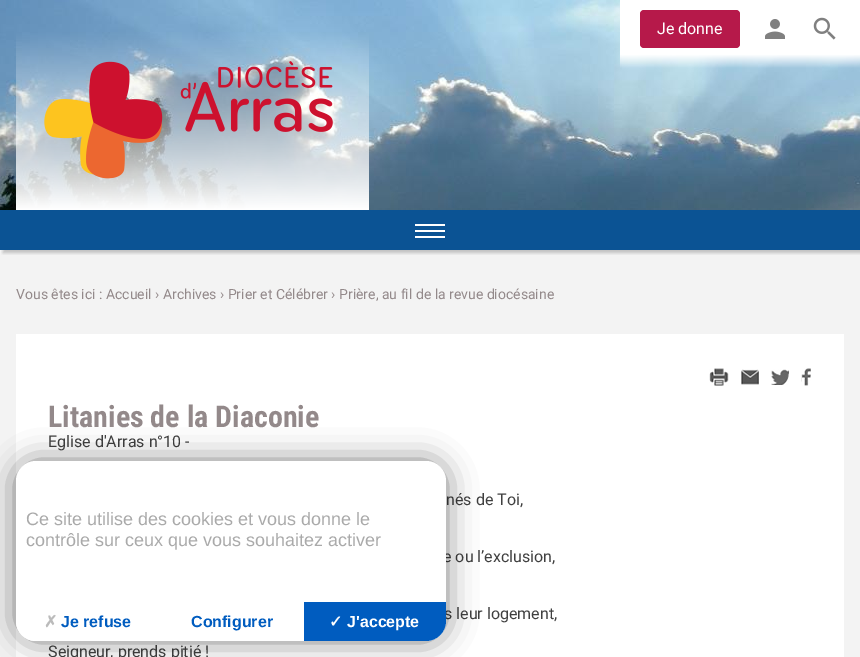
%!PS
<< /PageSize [860 657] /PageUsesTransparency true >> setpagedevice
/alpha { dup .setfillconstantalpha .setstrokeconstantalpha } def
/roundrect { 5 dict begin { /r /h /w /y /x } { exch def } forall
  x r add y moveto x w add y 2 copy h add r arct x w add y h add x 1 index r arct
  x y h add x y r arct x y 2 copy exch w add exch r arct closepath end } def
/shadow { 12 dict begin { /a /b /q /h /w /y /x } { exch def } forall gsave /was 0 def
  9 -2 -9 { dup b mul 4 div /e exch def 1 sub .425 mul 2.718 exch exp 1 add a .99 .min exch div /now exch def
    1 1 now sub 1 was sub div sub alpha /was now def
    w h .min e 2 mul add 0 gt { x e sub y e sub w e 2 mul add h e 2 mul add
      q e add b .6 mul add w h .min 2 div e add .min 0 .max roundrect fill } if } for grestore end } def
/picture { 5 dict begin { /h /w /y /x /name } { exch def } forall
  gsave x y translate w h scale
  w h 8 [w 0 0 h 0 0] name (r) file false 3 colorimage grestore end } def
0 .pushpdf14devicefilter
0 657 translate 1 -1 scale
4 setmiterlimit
0.953 setgray
0 0 860 657 rectfill
(img1.rgb) 0 0 860 210 picture
0.714 0.098 0.29 setrgbcolor
640 10 100 38 4 roundrect fill
/Roboto-Regular [16 0 0 -16 0 0] selectfont
1 setgray
657 34 moveto (Je donne) show
(img2.rgb) 765 19 20 20 picture
(img3.rgb) 813 17 23 23 picture
(img4.rgb) 44 61 289 118 picture
0.043 0.325 0.58 setrgbcolor
0 210 860 40 rectfill
gsave
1 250 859 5 rectclip
0 setgray
3 213 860 40 0 1.5 0.2 shadow
grestore
1 setgray
415 230 30 2 rectfill
415 224 30 2 rectfill
415 236 30 2 rectfill
/Roboto-Regular [14 0 0 -14 0 0] selectfont
0.576 0.537 0.541 setrgbcolor
16 299 moveto (Vous êtes ici : Accueil › Archives › Prier et Célébrer › Prière, au fil de la revue diocésaine) show
1 setgray
16 334 828 323 rectfill
(img5.rgb) 709 368 20 18 picture
(img6.rgb) 741 369 18 16 picture
(img7.rgb) 771 369 18 16 picture
(img8.rgb) 801 368 10 18 picture
/RobotoCondensed-Bold [30 0 0 -30 0 0] selectfont
0.576 0.537 0.541 setrgbcolor
48 427 moveto (Litanies de la Diaconie) show
/Roboto-Regular [16 0 0 -16 0 0] selectfont
0.251 setgray
48 447 moveto (Eglise d'Arras n°10 -) show
446 505 moveto (nés de Toi,) show
443 562 moveto (e ou l’exclusion,) show
444 619 moveto (s leur logement,) show
48 657 moveto (Seigneur, prends pitié !) show
0 setgray
16 461 430 180 20 15 0.5 shadow
1 setgray
16 461 430 180 20 roundrect fill
/LiberationSans-Regular [18 0 0 -18 0 0] selectfont
0.667 setgray
26 525 moveto (Ce site utilise des cookies et vous donne le) show
26 546 moveto (contrôle sur ceux que vous souhaitez activer) show
1 setgray
newpath 16 602 moveto 159 602 lineto 159 641 lineto 36 641 lineto 25 641 16 632 16 621 curveto closepath fill
/DejaVuSans-Bold [16 0 0 -16 0 0] selectfont
0.733 setgray
44 627 moveto (✗) show
/LiberationSans-Bold [16 0 0 -16 0 0] selectfont
0 0.361 0.749 setrgbcolor
61 627 moveto (Je refuse) show
newpath 303 602 moveto 446 602 lineto 446 621 lineto 446 632 437 641 426 641 curveto 303 641 lineto closepath fill
1 setgray
303 602 1 39 rectfill
0 0.361 0.749 setrgbcolor
191 627 moveto (Configurer) show
/DejaVuSans-Bold [16 0 0 -16 0 0] selectfont
1 setgray
329 627 moveto (✓) show
/LiberationSans-Bold [16 0 0 -16 0 0] selectfont
347 627 moveto (J'accepte) show
.poppdf14devicefilter showpage
